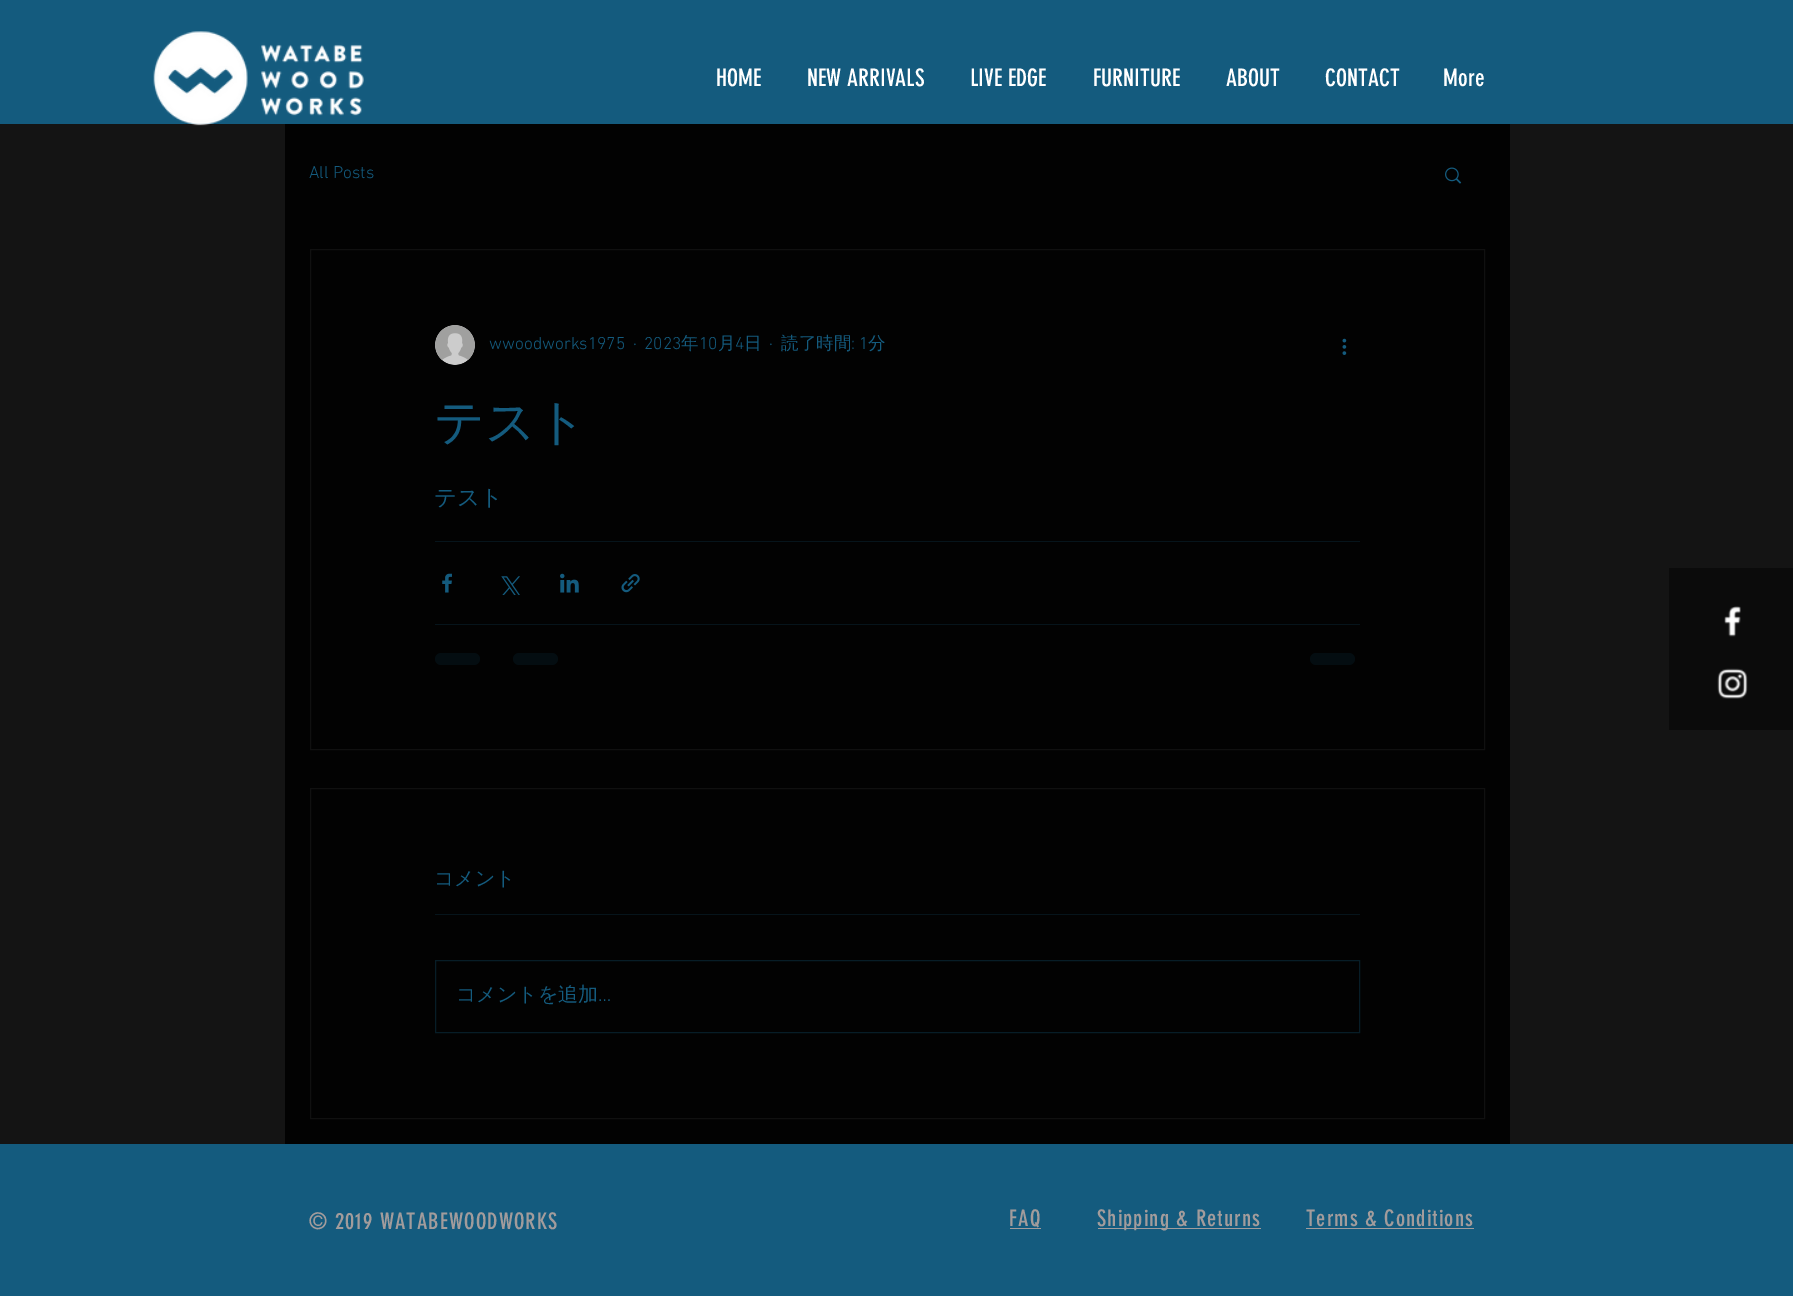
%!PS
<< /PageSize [1793 1296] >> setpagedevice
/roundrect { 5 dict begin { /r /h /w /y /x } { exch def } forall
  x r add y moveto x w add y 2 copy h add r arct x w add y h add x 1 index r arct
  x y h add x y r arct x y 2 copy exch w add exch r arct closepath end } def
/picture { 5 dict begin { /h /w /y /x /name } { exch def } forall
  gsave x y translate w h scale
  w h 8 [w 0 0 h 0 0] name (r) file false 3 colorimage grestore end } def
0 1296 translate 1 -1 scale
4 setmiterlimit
0.078 setgray
0 0 1793 1296 rectfill
0.078 0.357 0.494 setrgbcolor
0 0 1793 124 rectfill
(img1.rgb) 153 31 211 95 picture
/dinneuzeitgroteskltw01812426-Regular [23.75 0 0 -23.75 0 0] selectfont
1 setgray
716 86 moveto (HOME) show
807 86 moveto (NEW ARRIVALS) show
970 86 moveto (LIVE EDGE) show
1093 86 moveto (FURNITURE) show
1226 86 moveto (ABOUT) show
1325 86 moveto (CONTACT) show
1443 86 moveto (More) show
0.008 setgray
285 124 1225 1020 rectfill
/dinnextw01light-Light [17.5 0 0 -17.5 0 0] selectfont
0.078 0.357 0.494 setrgbcolor
309 178 moveto (All Posts) show
(img2.rgb) 1445 167 17 17 picture
0.063 setgray
310.5 249.5 1174 500 rectstroke
(img3.rgb) 435 325 40 40 picture
0.078 0.357 0.494 setrgbcolor
489 349 moveto (wwoodworks1975) show
633 349 moveto (·) show
644 349 moveto (2023) show
/WenQuanYiZenHei-Medium [17.5 0 0 -17.5 0 0] selectfont
681 349 moveto (年) show
/dinnextw01light-Light [17.5 0 0 -17.5 0 0] selectfont
699 349 moveto (10) show
/WenQuanYiZenHei-Medium [17.5 0 0 -17.5 0 0] selectfont
718 349 moveto (月) show
/dinnextw01light-Light [17.5 0 0 -17.5 0 0] selectfont
735 349 moveto (4) show
/WenQuanYiZenHei-Medium [17.5 0 0 -17.5 0 0] selectfont
744 349 moveto (日) show
/dinnextw01light-Light [17.5 0 0 -17.5 0 0] selectfont
769 349 moveto (·) show
/WenQuanYiZenHei-Medium [17.5 0 0 -17.5 0 0] selectfont
781 349 moveto (読了時間) show
/dinnextw01light-Light [17.5 0 0 -17.5 0 0] selectfont
851 349 moveto (: 1) show
/WenQuanYiZenHei-Medium [17.5 0 0 -17.5 0 0] selectfont
868 349 moveto (分) show
(img4.rgb) 1342 338 5 17 picture
/WenQuanYiZenHei-Medium [50 0 0 -50 0 0] selectfont
434 439 moveto (テスト) show
/WenQuanYiZenHei-Medium [22.5 0 0 -22.5 0 0] selectfont
434 505 moveto (テスト) show
0.024 0.078 0.106 setrgbcolor
435 541 925 1 rectfill
(img5.rgb) 442 573 10 20 picture
(img6.rgb) 501 576 19 19 picture
(img7.rgb) 560 573 19 20 picture
(img8.rgb) 621 574 19 19 picture
435 624 925 1 rectfill
0.016 0.051 0.067 setrgbcolor
435 653 45 12 6 roundrect fill
513 653 45 12 6 roundrect fill
1310 653 45 12 6 roundrect fill
0.063 setgray
310.5 788.5 1174 330 rectstroke
/WenQuanYiZenHei-Medium [20 0 0 -20 0 0] selectfont
0.078 0.357 0.494 setrgbcolor
434 885 moveto (コメント) show
0.024 0.078 0.106 setrgbcolor
435 914 925 1 rectfill
0.027 0.114 0.153 setrgbcolor
435.5 960.5 924 72 rectstroke
0.078 0.357 0.494 setrgbcolor
456 1001 moveto (コメントを追加) show
/dinnextw01light-Light [20 0 0 -20 0 0] selectfont
598 1001 moveto (…) show
0.043 setgray
1669 568 124 162 rectfill
(img9.rgb) 1724 606 17 31 picture
(img10.rgb) 1717 668 31 31 picture
0.078 0.357 0.494 setrgbcolor
0 1144 1793 152 rectfill
/dinneuzeitgroteskltw01812426-Regular [22.5 0 0 -22.5 0 0] selectfont
0.635 0.612 0.612 setrgbcolor
309 1229 moveto 1.1 0 (© 2019 WATABEWOODWORKS) ashow
1009 1226 moveto 1.1 0 (FAQ) ashow
1010 1228 31 1 rectfill
1098 1228 163 1 rectfill
1097 1226 moveto 1.1 0 (Shipping & Returns) ashow
1306 1226 moveto 1.1 0 (Terms & Conditions) ashow
1306 1228 168 1 rectfill
showpage
